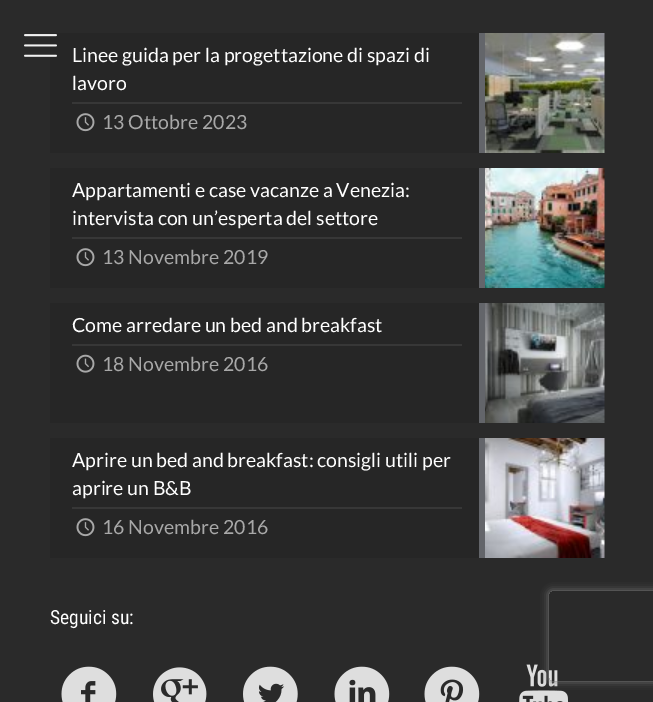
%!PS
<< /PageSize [653 702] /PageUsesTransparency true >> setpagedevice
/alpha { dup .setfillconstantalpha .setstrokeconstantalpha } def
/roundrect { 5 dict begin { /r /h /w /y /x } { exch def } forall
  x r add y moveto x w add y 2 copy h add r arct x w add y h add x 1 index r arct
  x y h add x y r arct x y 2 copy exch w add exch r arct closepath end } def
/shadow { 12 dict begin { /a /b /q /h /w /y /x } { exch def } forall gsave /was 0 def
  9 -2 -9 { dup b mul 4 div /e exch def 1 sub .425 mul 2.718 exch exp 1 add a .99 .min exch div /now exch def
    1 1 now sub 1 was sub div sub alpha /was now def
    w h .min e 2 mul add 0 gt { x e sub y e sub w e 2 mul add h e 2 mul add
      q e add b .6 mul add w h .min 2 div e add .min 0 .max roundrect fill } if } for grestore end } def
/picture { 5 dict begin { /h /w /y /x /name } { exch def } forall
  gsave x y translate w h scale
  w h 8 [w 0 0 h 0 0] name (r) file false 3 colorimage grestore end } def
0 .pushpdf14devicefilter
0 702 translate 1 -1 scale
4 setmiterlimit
0.165 setgray
0 0 653 702 rectfill
0.1 alpha
0 setgray
50 33 429 120 rectfill
1 alpha
(img1.rgb) 24 34 33 23 picture
0.216 setgray
72 102 390 2 rectfill
/Lato-Regular [19.5 0 0 -19.5 0 0] selectfont
1 setgray
72 62 moveto (Linee guida per la progettazione di spazi di) show
72 90 moveto (lavoro) show
0.388 0.396 0.416 setrgbcolor
479 33 6 120 rectfill
(img2.rgb) 76 113 19 19 picture
0.659 setgray
102 129 moveto (13 Ottobre 2023) show
(img3.rgb) 485 33 120 120 picture
0.1 alpha
0 setgray
50 168 429 120 rectfill
1 alpha
0.216 setgray
72 237 390 2 rectfill
1 setgray
72 197 moveto (Appartamenti e case vacanze a Venezia:) show
72 225 moveto (intervista con un’esperta del settore) show
0.388 0.396 0.416 setrgbcolor
479 168 6 120 rectfill
(img2.rgb) 76 248 19 19 picture
0.659 setgray
102 264 moveto (13 Novembre 2019) show
(img4.rgb) 485 168 120 120 picture
0.1 alpha
0 setgray
50 303 429 120 rectfill
1 alpha
0.216 setgray
72 344 390 2 rectfill
1 setgray
72 332 moveto (Come arredare un bed and breakfast) show
0.388 0.396 0.416 setrgbcolor
479 303 6 120 rectfill
(img5.rgb) 76 354 19 19 picture
0.659 setgray
102 371 moveto (18 Novembre 2016) show
(img6.rgb) 485 303 120 120 picture
0.1 alpha
0 setgray
50 438 429 120 rectfill
1 alpha
0.216 setgray
72 507 390 2 rectfill
1 setgray
72 467 moveto (Aprire un bed and breakfast: consigli utili per) show
72 495 moveto (aprire un B&B) show
0.388 0.396 0.416 setrgbcolor
479 438 6 120 rectfill
(img2.rgb) 76 518 19 19 picture
0.659 setgray
102 534 moveto (16 Novembre 2016) show
(img7.rgb) 485 438 120 120 picture
/RobotoCondensed-Regular [19.5 0 0 -19.5 0 0] selectfont
1 setgray
50 624 moveto (Seguici su:) show
(img8.rgb) 61 666 56 36 picture
(img9.rgb) 153 667 54 35 picture
(img10.rgb) 243 666 55 36 picture
(img11.rgb) 334 666 56 36 picture
(img12.rgb) 424 666 56 36 picture
(img13.rgb) 519 664 50 38 picture
gsave
newpath 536 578 moveto 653 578 lineto 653 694 lineto 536 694 lineto closepath 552 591 moveto 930 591 lineto 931.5 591 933 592.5 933 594 curveto 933 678 lineto 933 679.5 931.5 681 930 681 curveto 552 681 lineto 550.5 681 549 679.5 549 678 curveto 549 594 lineto 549 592.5 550.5 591 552 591 curveto closepath eoclip newpath
0.502 setgray
549 591 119 90 3 4 1 shadow
grestore
.poppdf14devicefilter showpage
